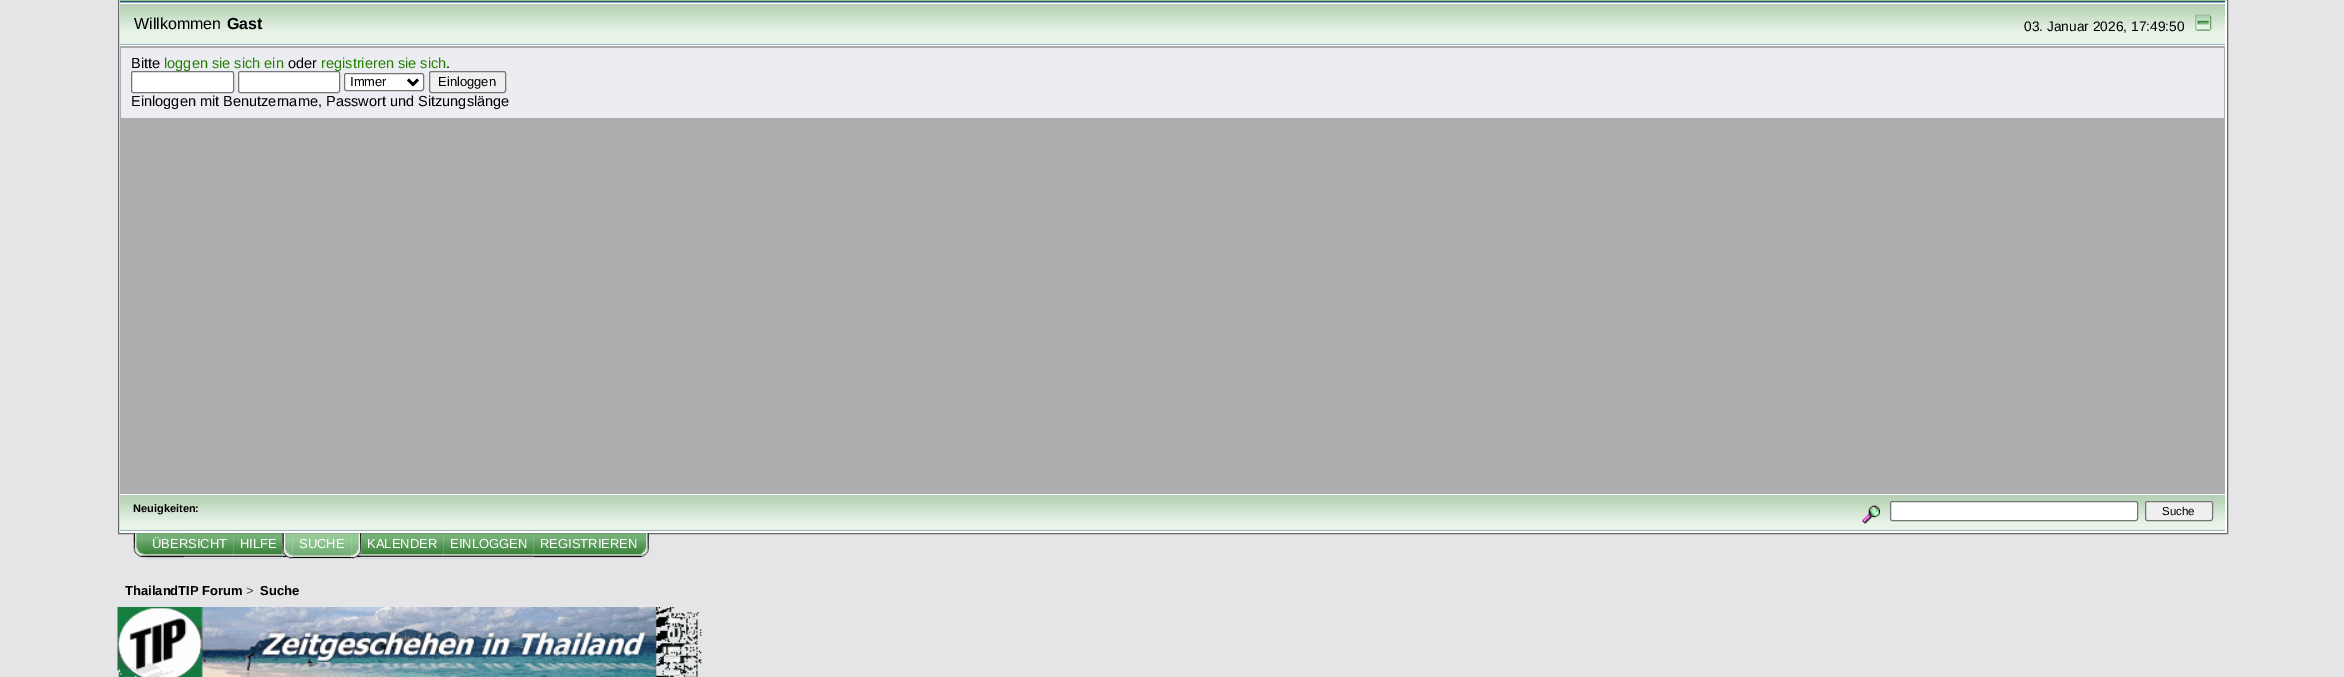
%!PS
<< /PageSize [2344 677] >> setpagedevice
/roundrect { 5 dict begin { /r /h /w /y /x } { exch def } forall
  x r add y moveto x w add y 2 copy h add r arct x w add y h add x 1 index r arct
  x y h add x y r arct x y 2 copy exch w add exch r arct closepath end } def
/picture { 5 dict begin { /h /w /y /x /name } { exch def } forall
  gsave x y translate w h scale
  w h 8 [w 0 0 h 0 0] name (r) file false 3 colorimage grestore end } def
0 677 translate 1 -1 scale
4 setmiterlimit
0.898 0.898 0.91 setrgbcolor
0 0 2344 677 rectfill
1 setgray
newpath 118.5 -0.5 moveto 2227.5 -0.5 lineto 2227.5 533.5 lineto 118.5 533.5 lineto closepath gsave fill grestore
0.412 setgray
stroke
0.533 0.651 0.753 setrgbcolor
120 2 2105 1 rectfill
0.533 0.749 0.525 setrgbcolor
120 0 2105 1 rectfill
0.216 0.333 0.463 setrgbcolor
120 1 2105 1 rectfill
(img1.rgb) 120 4 2105 40 picture
0.608 0.682 0.749 setrgbcolor
120 44 2105 1 rectfill
/LiberationSans-Regular [16 0 0 -16 0 0] selectfont
0 setgray
134 29 moveto (Willkommen) show
/LiberationSans-Bold [16 0 0 -16 0 0] selectfont
227 29 moveto (Gast) show
/LiberationSans-Regular [13.75 0 0 -13.75 0 0] selectfont
2024 31 moveto (03. Januar 2026, 17:49:50) show
(img2.rgb) 2195 14 17 17 picture
0.678 setgray
120 46 2105 448 rectfill
0.925 0.929 0.953 setrgbcolor
121 48 2103 70 rectfill
/LiberationSans-Regular [14.55 0 0 -14.55 0 0] selectfont
0 setgray
131 68 moveto (Bitte) show
0.149 0.498 0 setrgbcolor
164 68 moveto (loggen sie sich ein) show
0 setgray
288 68 moveto (oder) show
0.149 0.498 0 setrgbcolor
321 68 moveto (registrieren sie sich) show
0 setgray
446 68 moveto (.) show
1 setgray
131.5 71.5 102 21 2 roundrect gsave fill grestore
0.463 setgray
stroke
1 setgray
238.5 71.5 101 21 2 roundrect gsave fill grestore
0.463 setgray
stroke
1 setgray
344.5 73.5 79 17 2 roundrect gsave fill grestore
0.463 setgray
stroke
0 setgray
2.5 setlinewidth
newpath 408 79.5 moveto 413 84.5 lineto 418 79.5 lineto stroke
/LiberationSans-Regular [13 0 0 -13 0 0] selectfont
350 86 moveto (Immer) show
0.937 setgray
429.5 71.5 76 21 2 roundrect gsave fill grestore
0.463 setgray
1 setlinewidth
stroke
0 setgray
438 86 moveto (Einloggen) show
/LiberationSans-Regular [14.55 0 0 -14.55 0 0] selectfont
131 106 moveto (Einloggen mit Benutzername, Passwort und Sitzungslänge) show
(img3.rgb) 120 495 2105 35 picture
0.608 0.682 0.749 setrgbcolor
120 530 2105 1 rectfill
/LiberationSans-Bold [11 0 0 -11 0 0] selectfont
0 setgray
133 512 moveto (Neuigkeiten:) show
(img4.rgb) 1862 505 18 19 picture
1 setgray
1890.5 501.5 247 19 2 roundrect gsave fill grestore
0.463 setgray
stroke
0.937 setgray
2145.5 501.5 67 19 2 roundrect gsave fill grestore
0.463 setgray
stroke
/LiberationSans-Regular [11.5 0 0 -11.5 0 0] selectfont
0 setgray
2162 515 moveto (Suche) show
(img5.rgb) 133 533 51 25 picture
(img6.rgb) 146 533 88 26 picture
/LiberationSans-Regular [13 0 0 -13 0 0] selectfont
1 setgray
152 548 moveto (ÜBERSICHT) show
(img7.rgb) 233 533 50 26 picture
240 548 moveto (HILFE) show
(img8.rgb) 351 533 11 26 picture
(img9.rgb) 282 533 11 26 picture
(img10.rgb) 292 533 60 26 picture
299 548 moveto (SUCHE) show
(img11.rgb) 361 533 83 26 picture
367 548 moveto (KALENDER) show
(img12.rgb) 443 533 91 26 picture
450 548 moveto (EINLOGGEN) show
(img13.rgb) 533 533 116 25 picture
540 548 moveto (REGISTRIEREN) show
/LiberationSans-Bold [13 0 0 -13 0 0] selectfont
0 setgray
125 595 moveto (ThailandTIP Forum) show
/LiberationSans-Regular [13 0 0 -13 0 0] selectfont
0.267 setgray
246 595 moveto (>) show
/LiberationSans-Bold [13 0 0 -13 0 0] selectfont
0 setgray
260 595 moveto (Suche) show
(img14.rgb) 117 607 585 70 picture
showpage
